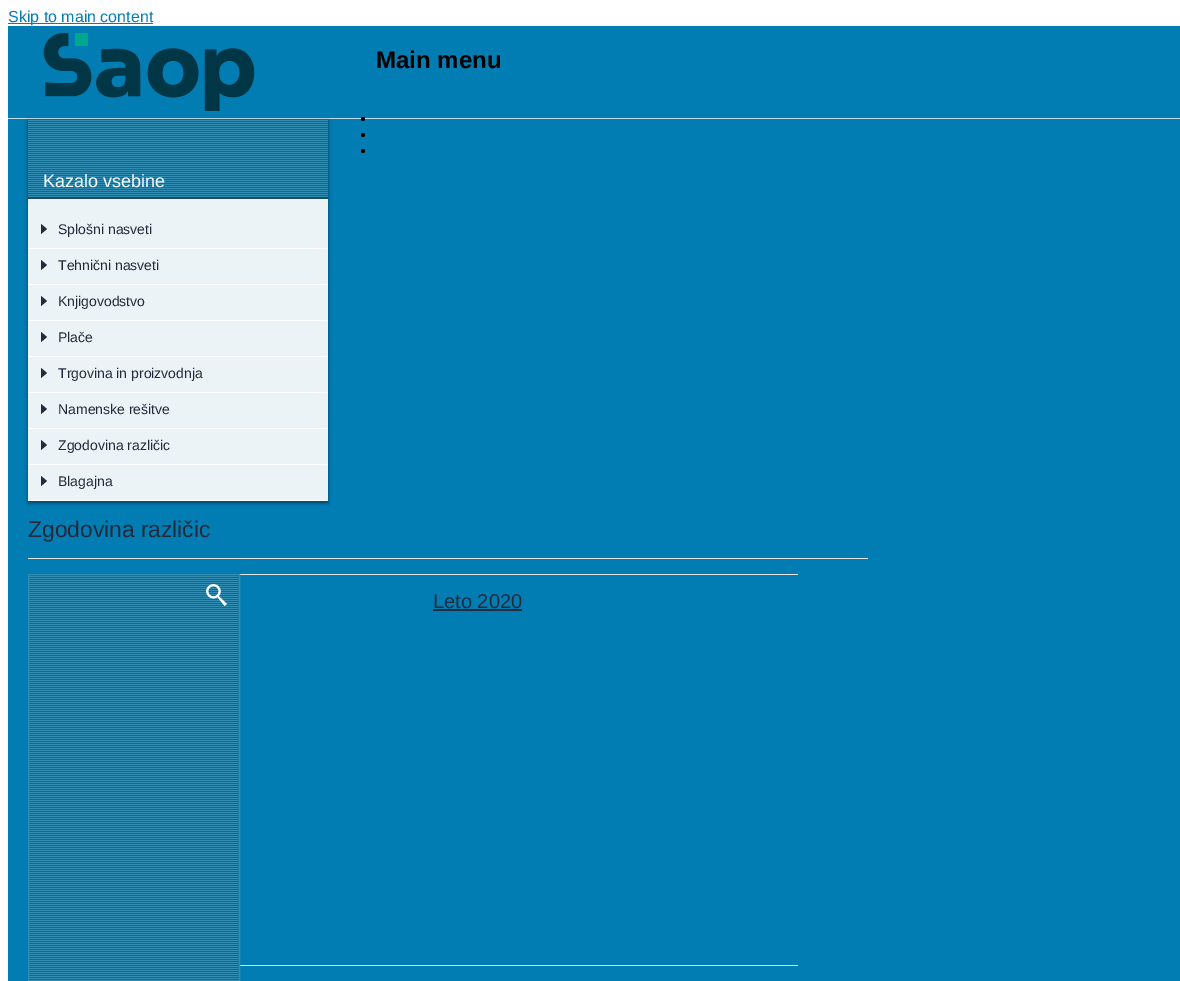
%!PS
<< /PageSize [1180 981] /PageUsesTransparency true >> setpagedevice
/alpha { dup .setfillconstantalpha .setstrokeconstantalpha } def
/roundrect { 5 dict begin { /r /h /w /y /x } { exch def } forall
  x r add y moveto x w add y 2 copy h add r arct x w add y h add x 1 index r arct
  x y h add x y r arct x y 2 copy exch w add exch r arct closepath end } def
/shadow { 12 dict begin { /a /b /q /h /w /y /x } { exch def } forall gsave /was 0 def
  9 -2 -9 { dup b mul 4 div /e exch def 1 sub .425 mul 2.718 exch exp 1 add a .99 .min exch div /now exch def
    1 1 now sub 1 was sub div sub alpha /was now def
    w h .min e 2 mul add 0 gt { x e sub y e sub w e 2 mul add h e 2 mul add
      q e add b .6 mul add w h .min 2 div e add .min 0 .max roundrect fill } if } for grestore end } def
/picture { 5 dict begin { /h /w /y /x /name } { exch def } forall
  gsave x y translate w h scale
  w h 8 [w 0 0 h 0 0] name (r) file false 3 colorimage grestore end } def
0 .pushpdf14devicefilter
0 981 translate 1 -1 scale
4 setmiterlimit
1 setgray
0 0 1180 981 rectfill
0.004 0.494 0.706 setrgbcolor
8 23 145 1 rectfill
/LiberationSans-Regular [16 0 0 -16 0 0] selectfont
8 22 moveto (Skip to main content) show
0.004 0.49 0.706 setrgbcolor
8 26 1172 955 rectfill
0.769 0.875 0.914 setrgbcolor
8 118 1172 1 rectfill
(img1.rgb) 43 33 212 78 picture
/LiberationSans-Bold [24 0 0 -24 0 0] selectfont
0 setgray
376 68 moveto (Main menu) show
newpath 363 119 2 0 360 arc closepath fill
newpath 363 135 2 0 360 arc closepath fill
newpath 363 151 2 0 360 arc closepath fill
28 121 300 382 0 2 0.5 shadow
0.922 0.953 0.965 setrgbcolor
28 199 300 301 rectfill
(img2.rgb) 28 119 300 78 picture
0.11 0.306 0.388 setrgbcolor
28 197 300 2 rectfill
/LiberationSans-Regular [18 0 0 -18 0 0] selectfont
1 setgray
43 187 moveto (Kazalo vsebine) show
28 248 300 1 rectfill
0.137 0.165 0.231 setrgbcolor
newpath 41 234 moveto 41 224 lineto 47 229 lineto closepath fill
/LiberationSans-Regular [14 0 0 -14 0 0] selectfont
58 234 moveto (Splošni nasveti) show
1 setgray
28 284 300 1 rectfill
0.137 0.165 0.231 setrgbcolor
newpath 41 270 moveto 41 260 lineto 47 265 lineto closepath fill
58 270 moveto (Tehnični nasveti) show
1 setgray
28 320 300 1 rectfill
0.137 0.165 0.231 setrgbcolor
newpath 41 306 moveto 41 296 lineto 47 301 lineto closepath fill
58 306 moveto (Knjigovodstvo) show
1 setgray
28 356 300 1 rectfill
0.137 0.165 0.231 setrgbcolor
newpath 41 342 moveto 41 332 lineto 47 337 lineto closepath fill
58 342 moveto (Plače) show
1 setgray
28 392 300 1 rectfill
0.137 0.165 0.231 setrgbcolor
newpath 41 378 moveto 41 368 lineto 47 373 lineto closepath fill
58 378 moveto (Trgovina in proizvodnja) show
1 setgray
28 428 300 1 rectfill
0.137 0.165 0.231 setrgbcolor
newpath 41 414 moveto 41 404 lineto 47 409 lineto closepath fill
58 414 moveto (Namenske rešitve) show
1 setgray
28 464 300 1 rectfill
0.137 0.165 0.231 setrgbcolor
newpath 41 450 moveto 41 440 lineto 47 445 lineto closepath fill
58 450 moveto (Zgodovina različic) show
1 setgray
28 500 300 1 rectfill
0.137 0.165 0.231 setrgbcolor
newpath 41 486 moveto 41 476 lineto 47 481 lineto closepath fill
58 486 moveto (Blagajna) show
0.898 setgray
28 558 840 1 rectfill
/LiberationSans-Regular [22.75 0 0 -22.75 0 0] selectfont
0.137 0.165 0.231 setrgbcolor
28 537 moveto (Zgodovina različic) show
0.898 setgray
240 574 558 1 rectfill
/LiberationSans-Regular [20 0 0 -20 0 0] selectfont
0.137 0.165 0.231 setrgbcolor
433 608 moveto (Leto 2020) show
433 609 89 2 rectfill
0.898 setgray
240 965 558 1 rectfill
0.2 0.549 0.698 setrgbcolor
29 980 210 1 rectfill
(img3.rgb) 29 575 210 405 picture
28.5 574.5 211 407 rectstroke
(img4.rgb) 206 584 21 22 picture
.poppdf14devicefilter showpage
